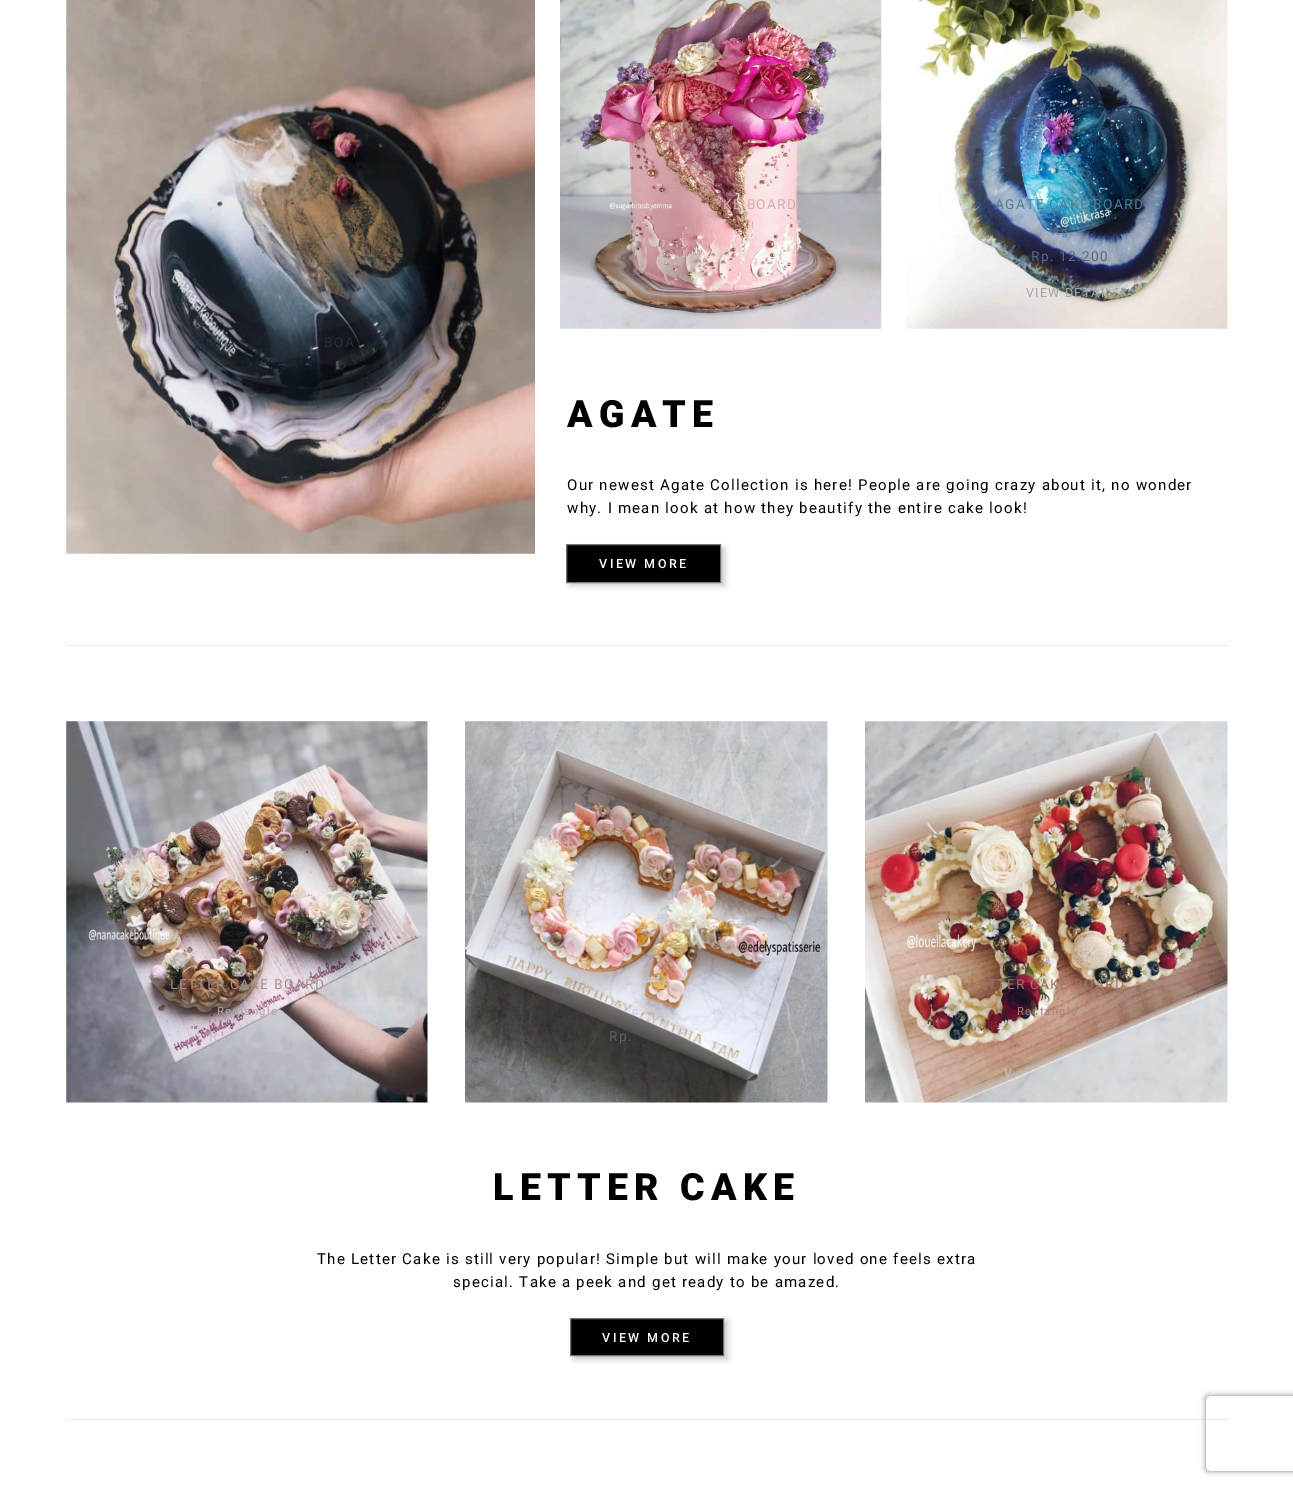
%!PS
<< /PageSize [1293 1488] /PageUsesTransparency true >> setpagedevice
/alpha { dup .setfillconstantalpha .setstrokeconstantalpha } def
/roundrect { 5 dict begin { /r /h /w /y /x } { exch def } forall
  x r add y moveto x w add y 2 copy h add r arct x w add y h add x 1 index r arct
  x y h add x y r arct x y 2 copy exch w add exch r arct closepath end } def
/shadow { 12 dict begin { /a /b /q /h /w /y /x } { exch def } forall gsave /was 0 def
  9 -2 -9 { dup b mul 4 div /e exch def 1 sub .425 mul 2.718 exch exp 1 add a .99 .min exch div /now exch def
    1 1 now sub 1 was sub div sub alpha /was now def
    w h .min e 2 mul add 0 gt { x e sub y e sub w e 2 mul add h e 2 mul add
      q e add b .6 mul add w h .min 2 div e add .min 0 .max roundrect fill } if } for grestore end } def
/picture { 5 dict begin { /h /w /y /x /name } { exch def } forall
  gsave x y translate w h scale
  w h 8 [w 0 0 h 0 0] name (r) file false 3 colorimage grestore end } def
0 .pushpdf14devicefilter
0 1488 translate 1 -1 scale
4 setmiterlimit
1 setgray
0 0 1293 1488 rectfill
0.922 setgray
66 645 1163 1 rectfill
(img1.rgb) 66 0 469 554 picture
/Roboto-Regular [13.75 0 0 -13.75 0 0] selectfont
0.149 0.173 0.208 setrgbcolor
226 347 moveto 1.25 0 (A) ashow
324 347 moveto 1.25 0 (BOA) ashow
(img2.rgb) 560 0 322 329 picture
0.839 0.678 0.682 setrgbcolor
723 209 moveto 1.25 0 (KE BOARD) ashow
/Roboto-Regular [11.25 0 0 -11.25 0 0] selectfont
0.914 0.71 0.718 setrgbcolor
734 235 moveto 1.25 0 (e) ashow
/Roboto-Regular [13.75 0 0 -13.75 0 0] selectfont
0.894 0.788 0.788 setrgbcolor
703 261 moveto 1.25 0 (.) ashow
(img3.rgb) 906 0 322 329 picture
0.302 0.49 0.588 setrgbcolor
995 209 moveto 1.25 0 (AGATE CAKE BOARD) ashow
/Roboto-Regular [11.25 0 0 -11.25 0 0] selectfont
0.341 0.463 0.58 setrgbcolor
1052 235 moveto 1.25 0 (Ag) ashow
/Roboto-Regular [13.75 0 0 -13.75 0 0] selectfont
0.373 0.4 0.502 setrgbcolor
1031 261 moveto 1.25 0 (Rp. 12.200) ashow
/Roboto-Regular [12.5 0 0 -12.5 0 0] selectfont
0.647 0.651 0.643 setrgbcolor
1026 297 moveto 1.25 0 (VIEW DETAIL) ashow
/Roboto-Black [37.5 0 0 -37.5 0 0] selectfont
0 setgray
567 427 moveto 6.25 0 (AGATE) ashow
/Roboto-Regular [15 0 0 -15 0 0] selectfont
567 490 moveto 1.25 0 (Our newest Agate Collection is here! People are going crazy about it, no wonder) ashow
567 513 moveto 1.25 0 (why. I mean look at how they beautify the entire cake look!) ashow
0.796 setgray
570 548 155 38 0 3 1 shadow
0 setgray
newpath 566.5 544.5 moveto 720.5 544.5 lineto 720.5 582.5 lineto 566.5 582.5 lineto closepath gsave fill grestore
0.424 0.459 0.49 setrgbcolor
stroke
/Roboto-Medium [12.5 0 0 -12.5 0 0] selectfont
1 setgray
599 568 moveto 2.5 0 (VIEW MORE) ashow
0.922 setgray
66 1419 1163 1 rectfill
(img4.rgb) 66 721 362 382 picture
/Roboto-Regular [13.75 0 0 -13.75 0 0] selectfont
0.643 0.553 0.533 setrgbcolor
170 989 moveto 1.25 0 (LETTER CAKE BOARD) ashow
/Roboto-Regular [11.25 0 0 -11.25 0 0] selectfont
0.706 0.639 0.675 setrgbcolor
217 1015 moveto 1.25 0 (Rectangle) ashow
/Roboto-Regular [13.75 0 0 -13.75 0 0] selectfont
0.765 0.753 0.796 setrgbcolor
209 1041 moveto 1.25 0 (R) ashow
(img5.rgb) 465 721 363 382 picture
0.82 0.784 0.761 setrgbcolor
661 989 moveto 1.25 0 (E) ashow
/Roboto-Regular [11.25 0 0 -11.25 0 0] selectfont
0.765 0.753 0.796 setrgbcolor
632 1015 moveto 1.25 0 (c) ashow
/Roboto-Regular [13.75 0 0 -13.75 0 0] selectfont
0.38 0.365 0.353 setrgbcolor
609 1041 moveto 1.25 0 (Rp.) ashow
(img6.rgb) 865 721 363 382 picture
0.608 0.459 0.408 setrgbcolor
970 989 moveto 1.25 0 (LETTER CAKE BOARD) ashow
/Roboto-Regular [11.25 0 0 -11.25 0 0] selectfont
0.639 0.498 0.478 setrgbcolor
1017 1015 moveto 1.25 0 (Rectangle) ashow
/Roboto-Regular [12.5 0 0 -12.5 0 0] selectfont
0.792 0.773 0.765 setrgbcolor
1004 1077 moveto 1.25 0 (V) ashow
/Roboto-Black [37.5 0 0 -37.5 0 0] selectfont
0 setgray
493 1200 moveto 6.25 0 (LETTER CAKE) ashow
/Roboto-Regular [15 0 0 -15 0 0] selectfont
317 1264 moveto 1.25 0 (The Letter Cake is still very popular! Simple but will make your loved one feels extra) ashow
453 1287 moveto 1.25 0 (special. Take a peek and get ready to be amazed.) ashow
0.796 setgray
574 1321 154 39 0 3 1 shadow
0 setgray
newpath 570.5 1318.5 moveto 723.5 1318.5 lineto 723.5 1355.5 lineto 570.5 1355.5 lineto closepath gsave fill grestore
0.424 0.459 0.49 setrgbcolor
stroke
/Roboto-Medium [12.5 0 0 -12.5 0 0] selectfont
1 setgray
602 1342 moveto 2.5 0 (VIEW MORE) ashow
gsave
newpath 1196 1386 moveto 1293 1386 lineto 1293 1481 lineto 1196 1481 lineto closepath 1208.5 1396 moveto 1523.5 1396 lineto 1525 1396 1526 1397 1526 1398.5 curveto 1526 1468.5 lineto 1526 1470 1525 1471 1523.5 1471 curveto 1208.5 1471 lineto 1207 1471 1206 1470 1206 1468.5 curveto 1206 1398.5 lineto 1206 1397 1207 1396 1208.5 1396 curveto closepath eoclip newpath
0.502 setgray
1206 1396 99 75 2.5 3 1 shadow
grestore
.poppdf14devicefilter showpage
